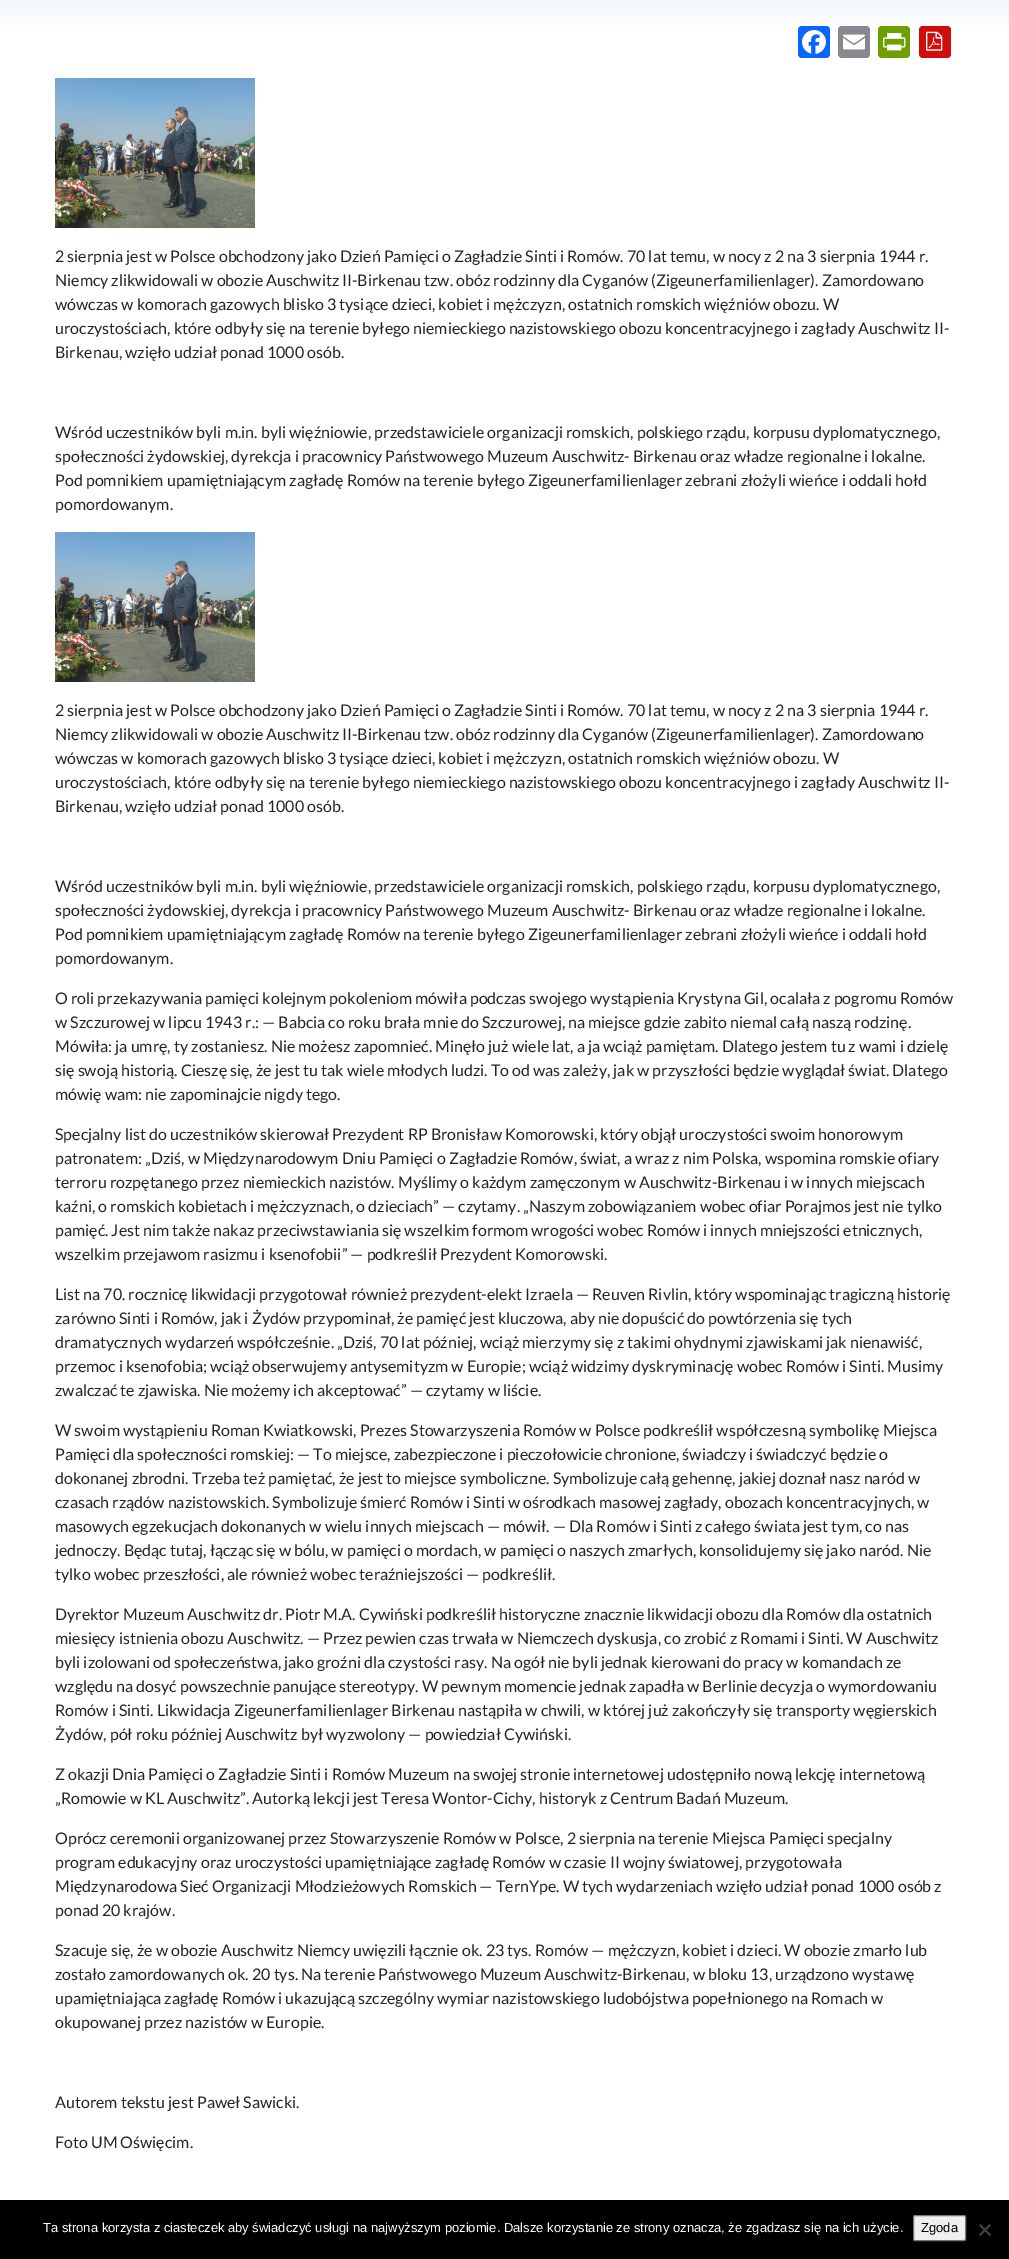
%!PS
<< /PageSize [1009 2259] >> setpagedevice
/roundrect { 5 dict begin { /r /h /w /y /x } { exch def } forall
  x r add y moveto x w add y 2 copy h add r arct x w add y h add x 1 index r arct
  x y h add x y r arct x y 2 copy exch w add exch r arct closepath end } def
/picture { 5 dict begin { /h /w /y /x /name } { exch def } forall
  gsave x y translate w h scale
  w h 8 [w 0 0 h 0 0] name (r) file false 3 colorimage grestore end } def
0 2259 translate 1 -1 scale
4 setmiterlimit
1 setgray
0 0 1009 2259 rectfill
gsave newpath 0 0 moveto 1009 0 lineto 1009 25 lineto 0 25 lineto closepath clip newpath
<< /ShadingType 2 /ColorSpace /DeviceRGB /Coords [504 -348 505 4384] /Extend [true true] /Function << /FunctionType 3 /Domain [0 1] /Functions [<< /FunctionType 2 /Domain [0 1] /C0 [0.62 0.753 0.859] /C1 [0.62 0.753 0.859] /N 1 >> << /FunctionType 2 /Domain [0 1] /C0 [0.62 0.753 0.859] /C1 [1 1 1] /N 1 >> << /FunctionType 2 /Domain [0 1] /C0 [1 1 1] /C1 [1 1 1] /N 1 >>] /Bounds [0.03 0.08] /Encode [0 1 0 1 0 1] >> >> shfill grestore
0.031 0.4 1 setrgbcolor
798 26 32 32 4 roundrect fill
(img1.rgb) 802 30 24 24 picture
0.533 0.537 0.565 setrgbcolor
838 26 32 32 4 roundrect fill
(img2.rgb) 843 34 22 16 picture
0.427 0.624 0 setrgbcolor
878 26 32 32 4 roundrect fill
(img3.rgb) 883 33 23 18 picture
0.812 0.051 0.051 setrgbcolor
919 26 32 32 4 roundrect fill
(img4.rgb) 926 31 17 20 picture
(img5.rgb) 55 78 200 150 picture
/Lato-Regular [16 0 0 -16 0 0] selectfont
0.129 0.145 0.161 setrgbcolor
55 262 moveto (2 sierpnia jest w Polsce obchodzony jako Dzień Pamięci o Zagładzie Sinti i Romów. 70 lat temu, w nocy z 2 na 3 sierpnia 1944 r.) show
55 286 moveto (Niemcy zlikwidowali w obozie Auschwitz II-Birkenau tzw. obóz rodzinny dla Cyganów \(Zigeunerfamilienlager\). Zamordowano) show
55 310 moveto (wówczas w komorach gazowych blisko 3 tysiące dzieci, kobiet i mężczyzn, ostatnich romskich więźniów obozu. W) show
55 334 moveto (uroczystościach, które odbyły się na terenie byłego niemieckiego nazistowskiego obozu koncentracyjnego i zagłady Auschwitz II-) show
55 358 moveto (Birkenau, wzięło udział ponad 1000 osób.) show
55 438 moveto (Wśród uczestników byli m.in. byli więźniowie, przedstawiciele organizacji romskich, polskiego rządu, korpusu dyplomatycznego,) show
55 462 moveto (społeczności żydowskiej, dyrekcja i pracownicy Państwowego Muzeum Auschwitz- Birkenau oraz władze regionalne i lokalne.) show
55 486 moveto (Pod pomnikiem upamiętniającym zagładę Romów na terenie byłego Zigeunerfamilienlager zebrani złożyli wieńce i oddali hołd) show
55 510 moveto (pomordowanym.) show
(img5.rgb) 55 532 200 150 picture
55 716 moveto (2 sierpnia jest w Polsce obchodzony jako Dzień Pamięci o Zagładzie Sinti i Romów. 70 lat temu, w nocy z 2 na 3 sierpnia 1944 r.) show
55 740 moveto (Niemcy zlikwidowali w obozie Auschwitz II-Birkenau tzw. obóz rodzinny dla Cyganów \(Zigeunerfamilienlager\). Zamordowano) show
55 764 moveto (wówczas w komorach gazowych blisko 3 tysiące dzieci, kobiet i mężczyzn, ostatnich romskich więźniów obozu. W) show
55 788 moveto (uroczystościach, które odbyły się na terenie byłego niemieckiego nazistowskiego obozu koncentracyjnego i zagłady Auschwitz II-) show
55 812 moveto (Birkenau, wzięło udział ponad 1000 osób.) show
55 892 moveto (Wśród uczestników byli m.in. byli więźniowie, przedstawiciele organizacji romskich, polskiego rządu, korpusu dyplomatycznego,) show
55 916 moveto (społeczności żydowskiej, dyrekcja i pracownicy Państwowego Muzeum Auschwitz- Birkenau oraz władze regionalne i lokalne.) show
55 940 moveto (Pod pomnikiem upamiętniającym zagładę Romów na terenie byłego Zigeunerfamilienlager zebrani złożyli wieńce i oddali hołd) show
55 964 moveto (pomordowanym.) show
55 1004 moveto (O roli przekazywania pamięci kolejnym pokoleniom mówiła podczas swojego wystąpienia Krystyna Gil, ocalała z pogromu Romów) show
55 1028 moveto (w Szczurowej w lipcu 1943 r.: — Babcia co roku brała mnie do Szczurowej, na miejsce gdzie zabito niemal całą naszą rodzinę.) show
55 1052 moveto (Mówiła: ja umrę, ty zostaniesz. Nie możesz zapomnieć. Minęło już wiele lat, a ja wciąż pamiętam. Dlatego jestem tu z wami i dzielę) show
55 1076 moveto (się swoją historią. Cieszę się, że jest tu tak wiele młodych ludzi. To od was zależy, jak w przyszłości będzie wyglądał świat. Dlatego) show
55 1100 moveto (mówię wam: nie zapominajcie nigdy tego.) show
55 1140 moveto (Specjalny list do uczestników skierował Prezydent RP Bronisław Komorowski, który objął uroczystości swoim honorowym) show
55 1164 moveto (patronatem: „Dziś, w Międzynarodowym Dniu Pamięci o Zagładzie Romów, świat, a wraz z nim Polska, wspomina romskie ofiary) show
55 1188 moveto (terroru rozpętanego przez niemieckich nazistów. Myślimy o każdym zamęczonym w Auschwitz-Birkenau i w innych miejscach) show
55 1212 moveto (kaźni, o romskich kobietach i mężczyznach, o dzieciach” — czytamy. „Naszym zobowiązaniem wobec ofiar Porajmos jest nie tylko) show
55 1236 moveto (pamięć. Jest nim także nakaz przeciwstawiania się wszelkim formom wrogości wobec Romów i innych mniejszości etnicznych,) show
55 1260 moveto (wszelkim przejawom rasizmu i ksenofobii” — podkreślił Prezydent Komorowski.) show
55 1300 moveto (List na 70. rocznicę likwidacji przygotował również prezydent-elekt Izraela — Reuven Rivlin, który wspominając tragiczną historię) show
55 1324 moveto (zarówno Sinti i Romów, jak i Żydów przypominał, że pamięć jest kluczowa, aby nie dopuścić do powtórzenia się tych) show
55 1348 moveto (dramatycznych wydarzeń współcześnie. „Dziś, 70 lat później, wciąż mierzymy się z takimi ohydnymi zjawiskami jak nienawiść,) show
55 1372 moveto (przemoc i ksenofobia; wciąż obserwujemy antysemityzm w Europie; wciąż widzimy dyskryminację wobec Romów i Sinti. Musimy) show
55 1396 moveto (zwalczać te zjawiska. Nie możemy ich akceptować” — czytamy w liście.) show
55 1436 moveto (W swoim wystąpieniu Roman Kwiatkowski, Prezes Stowarzyszenia Romów w Polsce podkreślił współczesną symbolikę Miejsca) show
55 1460 moveto (Pamięci dla społeczności romskiej: — To miejsce, zabezpieczone i pieczołowicie chronione, świadczy i świadczyć będzie o) show
55 1484 moveto (dokonanej zbrodni. Trzeba też pamiętać, że jest to miejsce symboliczne. Symbolizuje całą gehennę, jakiej doznał nasz naród w) show
55 1508 moveto (czasach rządów nazistowskich. Symbolizuje śmierć Romów i Sinti w ośrodkach masowej zagłady, obozach koncentracyjnych, w) show
55 1532 moveto (masowych egzekucjach dokonanych w wielu innych miejscach — mówił. — Dla Romów i Sinti z całego świata jest tym, co nas) show
55 1556 moveto (jednoczy. Będąc tutaj, łącząc się w bólu, w pamięci o mordach, w pamięci o naszych zmarłych, konsolidujemy się jako naród. Nie) show
55 1580 moveto (tylko wobec przeszłości, ale również wobec teraźniejszości — podkreślił.) show
55 1620 moveto (Dyrektor Muzeum Auschwitz dr. Piotr M.A. Cywiński podkreślił historyczne znacznie likwidacji obozu dla Romów dla ostatnich) show
55 1644 moveto (miesięcy istnienia obozu Auschwitz. — Przez pewien czas trwała w Niemczech dyskusja, co zrobić z Romami i Sinti. W Auschwitz) show
55 1668 moveto (byli izolowani od społeczeństwa, jako groźni dla czystości rasy. Na ogół nie byli jednak kierowani do pracy w komandach ze) show
55 1692 moveto (względu na dosyć powszechnie panujące stereotypy. W pewnym momencie jednak zapadła w Berlinie decyzja o wymordowaniu) show
55 1716 moveto (Romów i Sinti. Likwidacja Zigeunerfamilienlager Birkenau nastąpiła w chwili, w której już zakończyły się transporty węgierskich) show
55 1740 moveto (Żydów, pół roku później Auschwitz był wyzwolony — powiedział Cywiński.) show
55 1780 moveto (Z okazji Dnia Pamięci o Zagładzie Sinti i Romów Muzeum na swojej stronie internetowej udostępniło nową lekcję internetową) show
55 1804 moveto („Romowie w KL Auschwitz”. Autorką lekcji jest Teresa Wontor-Cichy, historyk z Centrum Badań Muzeum.) show
55 1844 moveto (Oprócz ceremonii organizowanej przez Stowarzyszenie Romów w Polsce, 2 sierpnia na terenie Miejsca Pamięci specjalny) show
55 1868 moveto (program edukacyjny oraz uroczystości upamiętniające zagładę Romów w czasie II wojny światowej, przygotowała) show
55 1892 moveto (Międzynarodowa Sieć Organizacji Młodzieżowych Romskich — TernYpe. W tych wydarzeniach wzięło udział ponad 1000 osób z) show
55 1916 moveto (ponad 20 krajów.) show
55 1956 moveto (Szacuje się, że w obozie Auschwitz Niemcy uwięzili łącznie ok. 23 tys. Romów — mężczyzn, kobiet i dzieci. W obozie zmarło lub) show
55 1980 moveto (zostało zamordowanych ok. 20 tys. Na terenie Państwowego Muzeum Auschwitz-Birkenau, w bloku 13, urządzono wystawę) show
55 2004 moveto (upamiętniająca zagładę Romów i ukazującą szczególny wymiar nazistowskiego ludobójstwa popełnionego na Romach w) show
55 2028 moveto (okupowanej przez nazistów w Europie.) show
55 2108 moveto (Autorem tekstu jest Paweł Sawicki.) show
55 2148 moveto (Foto UM Oświęcim.) show
0 setgray
0 2200 1009 59 rectfill
/LiberationSans-Regular [13 0 0 -13 0 0] selectfont
1 setgray
43 2232 moveto (Ta strona korzysta z ciasteczek aby świadczyć usługi na najwyższym poziomie. Dalsze korzystanie ze strony oznacza, że zgadzasz się na ich użycie.) show
0.937 setgray
913.5 2215.5 52 25 1.5 roundrect gsave fill grestore
0.463 setgray
stroke
0 setgray
921 2232 moveto (Zgoda) show
0.251 setgray
newpath 989.5 2224 moveto 991 2225.5 lineto 980.5 2236 lineto 979 2234.5 lineto closepath fill
newpath 979 2225.5 moveto 980.5 2224 lineto 991 2234.5 lineto 989.5 2236 lineto closepath fill
showpage
